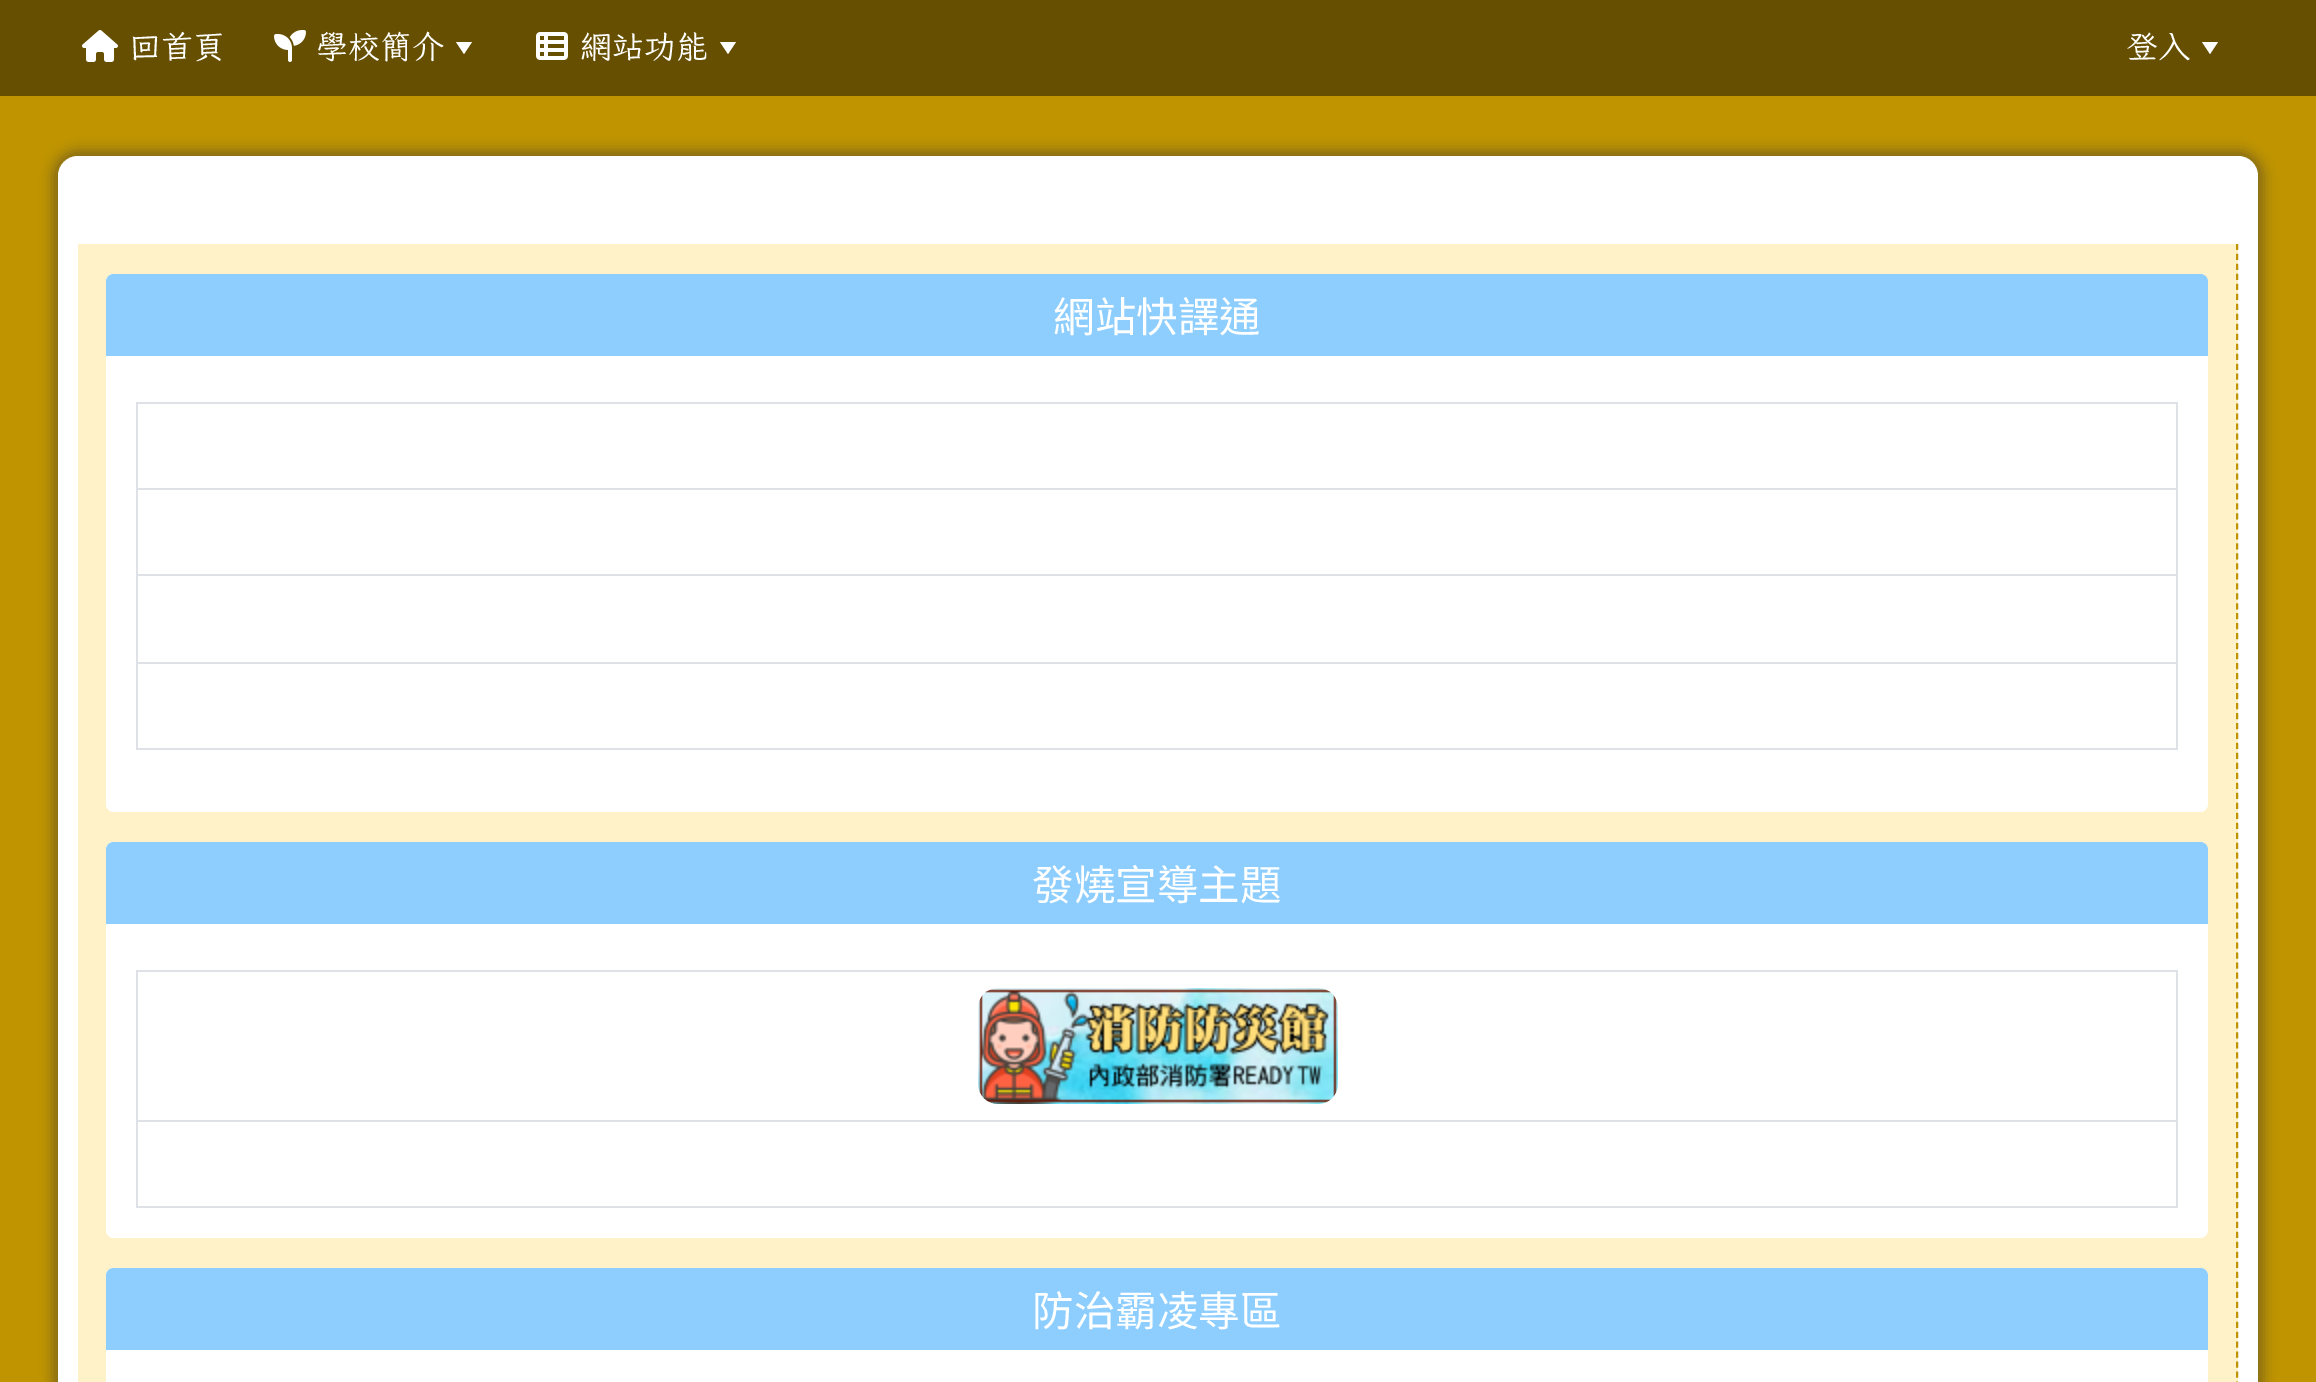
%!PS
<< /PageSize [2316 1382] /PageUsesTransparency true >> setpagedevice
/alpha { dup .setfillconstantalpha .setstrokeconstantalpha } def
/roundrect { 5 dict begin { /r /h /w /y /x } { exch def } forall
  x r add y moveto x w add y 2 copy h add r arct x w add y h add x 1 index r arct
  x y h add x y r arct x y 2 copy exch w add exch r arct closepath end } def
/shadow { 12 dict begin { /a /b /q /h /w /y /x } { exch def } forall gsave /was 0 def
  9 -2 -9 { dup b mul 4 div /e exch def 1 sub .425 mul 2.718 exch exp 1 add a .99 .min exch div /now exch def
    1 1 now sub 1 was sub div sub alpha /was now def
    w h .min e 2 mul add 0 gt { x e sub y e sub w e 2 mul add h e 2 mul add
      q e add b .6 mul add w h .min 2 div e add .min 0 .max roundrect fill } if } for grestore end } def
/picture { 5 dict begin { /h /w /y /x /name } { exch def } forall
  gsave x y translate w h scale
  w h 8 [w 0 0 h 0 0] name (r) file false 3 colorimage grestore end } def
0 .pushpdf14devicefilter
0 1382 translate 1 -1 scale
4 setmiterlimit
0.749 0.58 0 setrgbcolor
0 0 2316 1382 rectfill
0.4 0.31 0 setrgbcolor
0 0 2316 96 rectfill
(img1.rgb) 82 30 36 32 picture
/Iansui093-Regular [32 0 0 -32 0 0] selectfont
1 setgray
129 58 moveto (回首頁) show
(img2.rgb) 274 30 32 32 picture
316 58 moveto (學校簡介) show
newpath 456 42 moveto 472 42 lineto 464 54 lineto closepath fill
(img3.rgb) 536 32 32 28 picture
580 58 moveto (網站功能) show
newpath 720 42 moveto 736 42 lineto 728 54 lineto closepath fill
2126 58 moveto (登入) show
newpath 2202 42 moveto 2218 42 lineto 2210 54 lineto closepath fill
0.196 setgray
52 150 2212 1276 26 6 0.4 shadow
1 setgray
58 156 2200 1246 20 roundrect fill
1 0.945 0.784 setrgbcolor
78 244 2160 1138 rectfill
0.749 0.58 0 setrgbcolor
2 setlinewidth
[6 3.98] 0 setdash
newpath 2237 244 moveto 2237 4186 lineto stroke
1 setgray
106 274 2102 538 8 roundrect fill
0.557 0.808 1 setrgbcolor
newpath 114 274 moveto 2200 274 lineto 2204.5 274 2208 277.5 2208 282 curveto 2208 356 lineto 106 356 lineto 106 282 lineto 106 277.5 109.5 274 114 274 curveto closepath fill
/NotoSansTC-Thin [41.5 0 0 -41.5 0 0] selectfont
1 setgray
1053 332 moveto (網站快譯通) show
0.871 0.886 0.902 setrgbcolor
136 402 2042 2 rectfill
2176 402 2 348 rectfill
136 748 2042 2 rectfill
136 402 2 348 rectfill
136 488 2042 2 rectfill
136 574 2042 2 rectfill
136 662 2042 2 rectfill
1 setgray
106 842 2102 396 8 roundrect fill
0.557 0.808 1 setrgbcolor
newpath 114 842 moveto 2200 842 lineto 2204.5 842 2208 845.5 2208 850 curveto 2208 924 lineto 106 924 lineto 106 850 lineto 106 845.5 109.5 842 114 842 curveto closepath fill
1 setgray
1032 900 moveto (發燒宣導主題) show
0.871 0.886 0.902 setrgbcolor
136 970 2042 2 rectfill
2176 970 2 238 rectfill
136 1206 2042 2 rectfill
136 970 2 238 rectfill
(img4.rgb) 978 988 360 116 picture
136 1120 2042 2 rectfill
1 setgray
106 1268 2102 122 8 roundrect fill
0.557 0.808 1 setrgbcolor
newpath 114 1268 moveto 2200 1268 lineto 2204.5 1268 2208 1271.5 2208 1276 curveto 2208 1350 lineto 106 1350 lineto 106 1276 lineto 106 1271.5 109.5 1268 114 1268 curveto closepath fill
1 setgray
1032 1326 moveto (防治霸凌專區) show
.poppdf14devicefilter showpage
